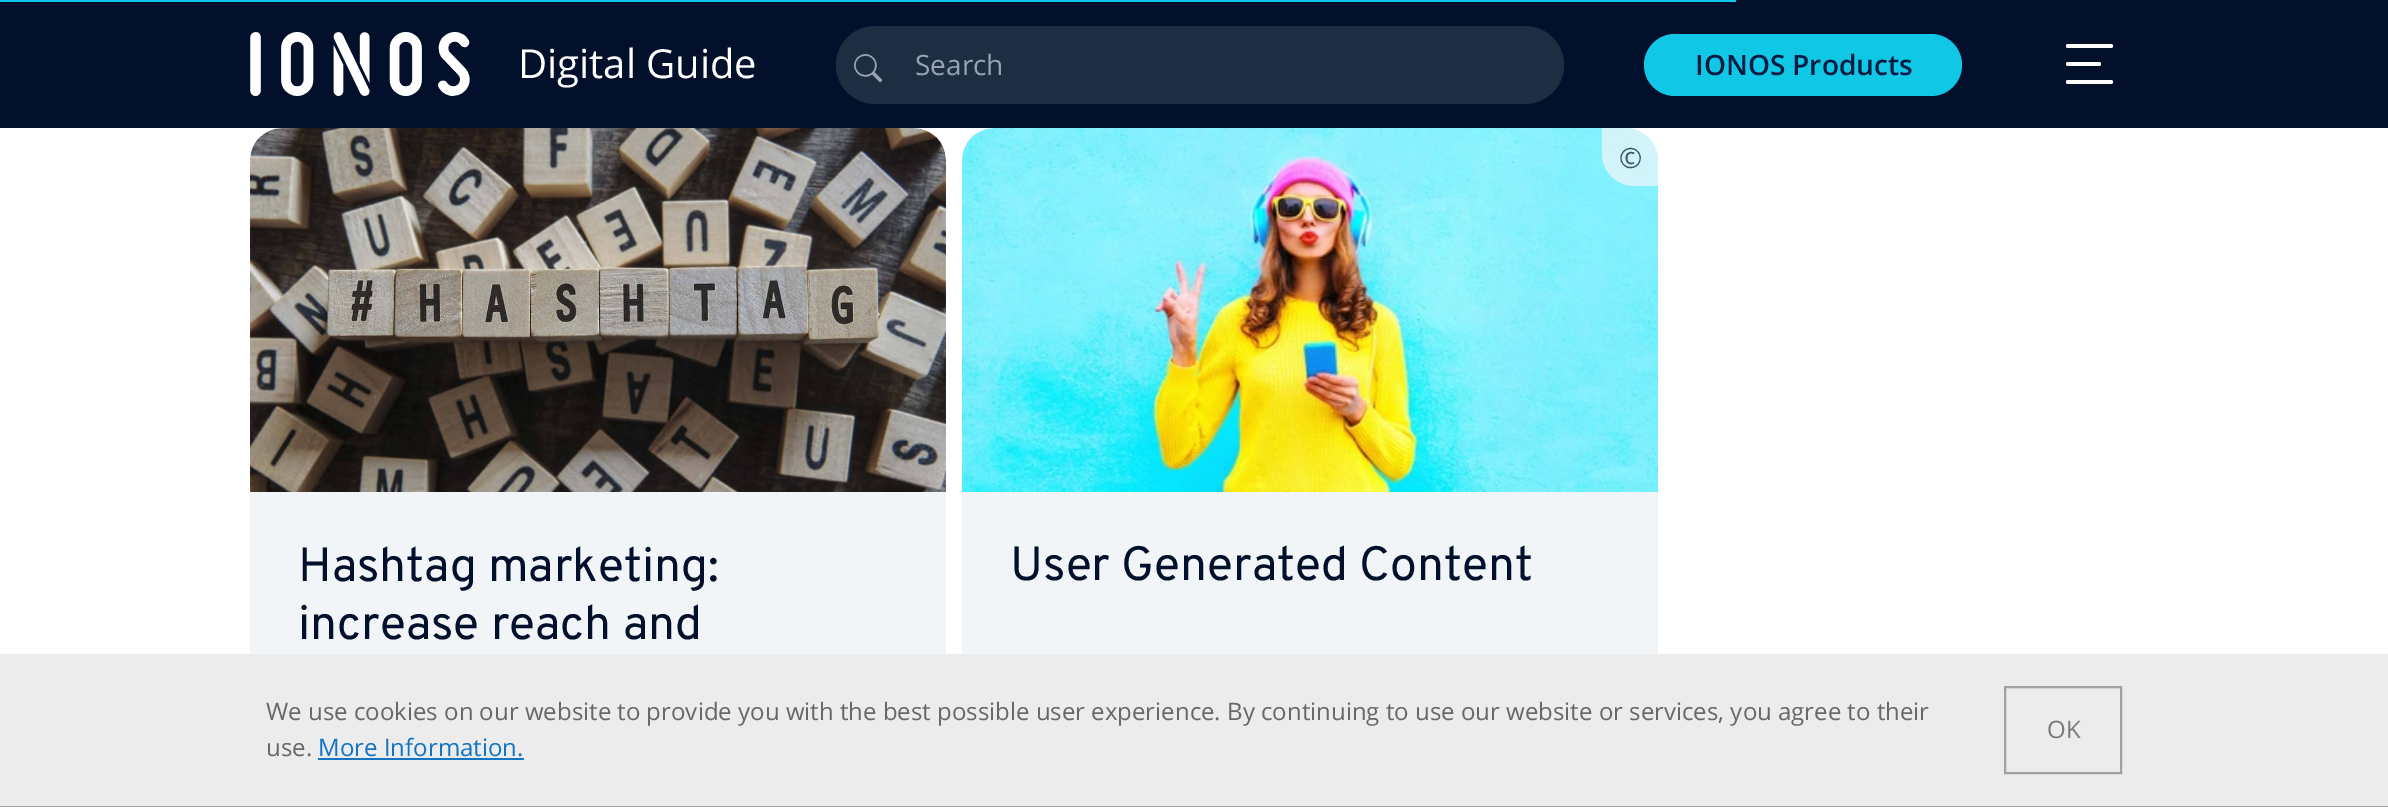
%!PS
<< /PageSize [2388 807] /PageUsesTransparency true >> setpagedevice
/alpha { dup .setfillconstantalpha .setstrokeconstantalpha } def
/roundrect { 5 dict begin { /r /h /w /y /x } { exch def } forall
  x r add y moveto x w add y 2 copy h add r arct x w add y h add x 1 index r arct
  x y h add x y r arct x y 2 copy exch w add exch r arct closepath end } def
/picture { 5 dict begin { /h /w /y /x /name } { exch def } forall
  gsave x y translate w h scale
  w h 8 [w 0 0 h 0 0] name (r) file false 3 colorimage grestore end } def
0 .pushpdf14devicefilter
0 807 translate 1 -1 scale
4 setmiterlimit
1 setgray
0 0 2388 807 rectfill
0.008 0.063 0.169 setrgbcolor
0 0 2388 128 rectfill
0.067 0.78 0.902 setrgbcolor
0 0 1736 2 rectfill
(img1.rgb) 250 32 220 64 picture
/OpenSans-Regular [40 0 0 -40 0 0] selectfont
1 setgray
518 78 moveto (Digital Guide) show
0.114 0.176 0.259 setrgbcolor
newpath 875 26 moveto 900 26 lineto 900 104 lineto 875 104 lineto 853.5 104 836 86.5 836 65 curveto 836 43.5 853.5 26 875 26 curveto closepath fill
newpath 898 26 moveto 1525 26 lineto 1546.5 26 1564 43.5 1564 65 curveto 1564 86.5 1546.5 104 1525 104 curveto 898 104 lineto closepath fill
836 34 64 62 31 roundrect fill
(img2.rgb) 854 54 28 28 picture
/OpenSans-Regular [28 0 0 -28 0 0] selectfont
0.592 0.639 0.706 setrgbcolor
915 75 moveto (Search) show
0.067 0.78 0.902 setrgbcolor
1644 34 318 62 31 roundrect fill
/OpenSans-SemiBold [28 0 0 -28 0 0] selectfont
0 0.106 0.255 setrgbcolor
1695 75 moveto (IONOS Products) show
1 setgray
2066 44 47 4 2 roundrect fill
2066 62 35 4 2 roundrect fill
2066 80 47 4 2 roundrect fill
0.949 0.961 0.973 setrgbcolor
962 128 696 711 32 roundrect fill
(img3.rgb) 962 128 696 364 picture
0.7 alpha
newpath 1602 128 moveto 1626 128 lineto 1643.5 128 1658 142.5 1658 160 curveto 1658 186 lineto 1634 186 lineto 1616.5 186 1602 171.5 1602 154 curveto closepath fill
/OpenSans-Regular [28 0 0 -28 0 0] selectfont
1 alpha
0.251 0.329 0.412 setrgbcolor
1619 168 moveto (©) show
/Overpass-Regular [48 0 0 -48 0 0] selectfont
0.008 0.063 0.169 setrgbcolor
1010 580 moveto (User Generated Content) show
0.949 0.961 0.973 setrgbcolor
250 128 696 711 32 roundrect fill
(img4.rgb) 250 128 696 364 picture
0.008 0.063 0.169 setrgbcolor
298 581 moveto (Hashtag marketing:) show
298 639 moveto (increase reach and) show
0.925 setgray
0 654 2388 152 rectfill
0.635 setgray
0 806 2388 1 rectfill
/OpenSans-Regular [24 0 0 -24 0 0] selectfont
0.408 setgray
266 720 moveto (We use cookies on our website to provide you with the best possible user experience. By continuing to use our website or services, you agree to their) show
266 756 moveto (use.) show
0.078 0.455 0.769 setrgbcolor
318 756 moveto (More Information.) show
318 758 206 2 rectfill
0.635 setgray
2 setlinewidth
2005 687 116 86 rectstroke
0.475 setgray
2047 738 moveto (OK) show
.poppdf14devicefilter showpage
